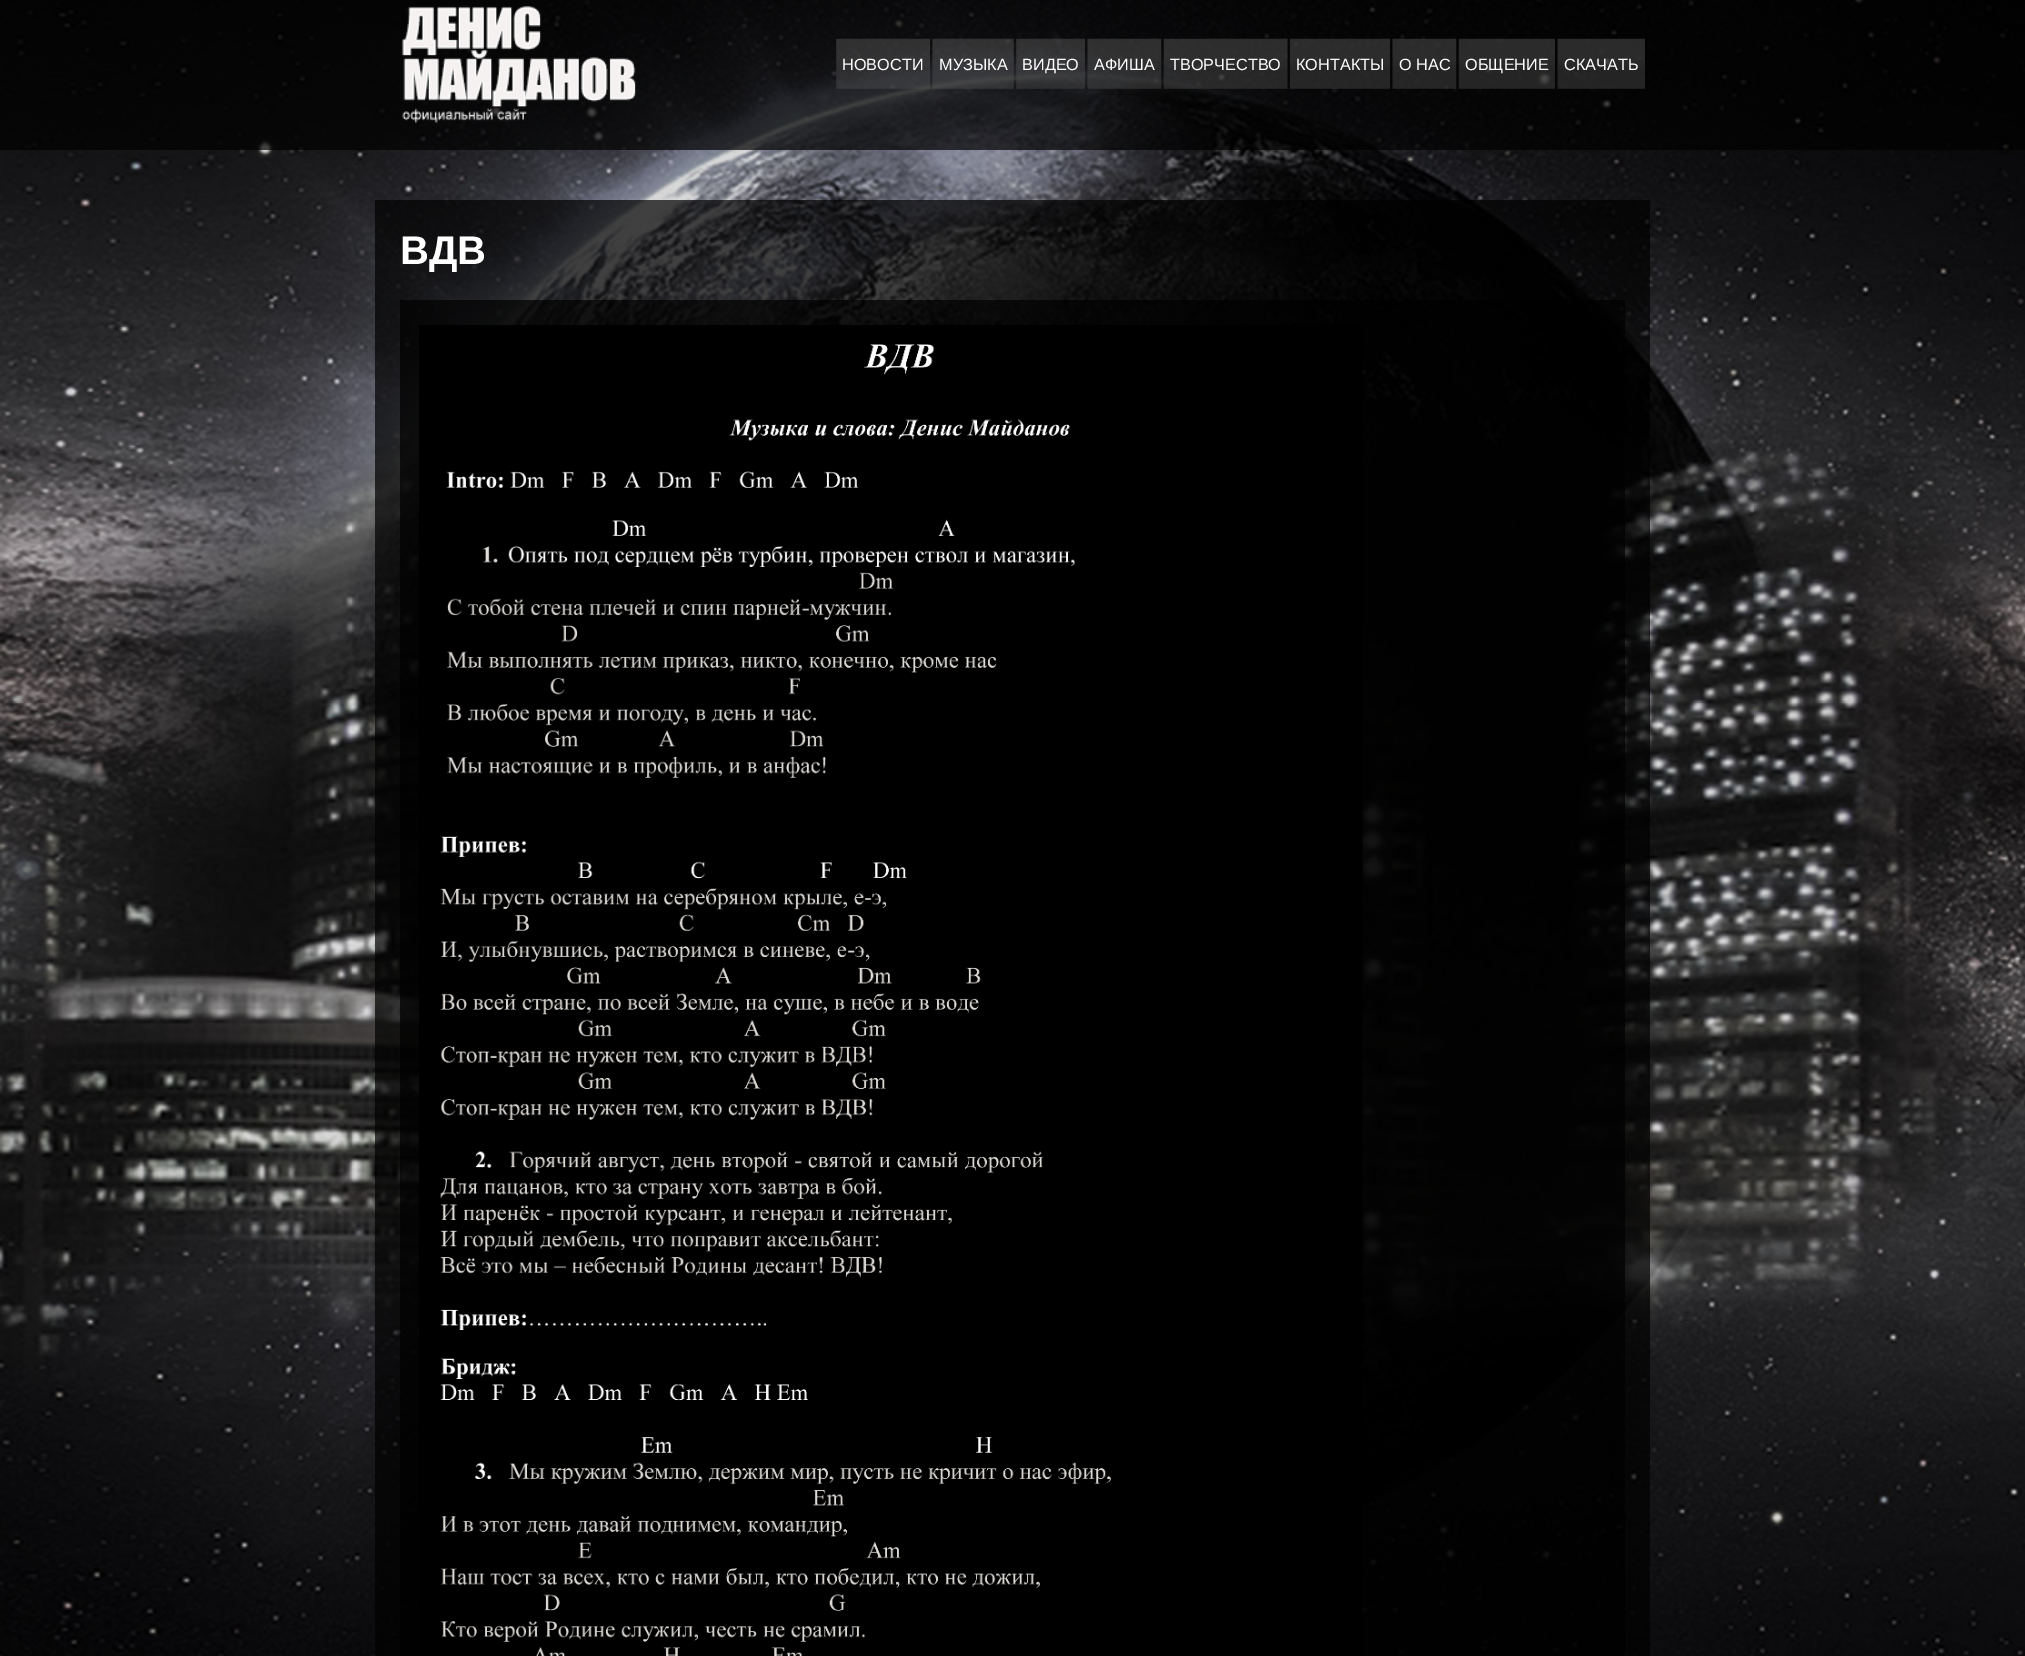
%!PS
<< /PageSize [2025 1656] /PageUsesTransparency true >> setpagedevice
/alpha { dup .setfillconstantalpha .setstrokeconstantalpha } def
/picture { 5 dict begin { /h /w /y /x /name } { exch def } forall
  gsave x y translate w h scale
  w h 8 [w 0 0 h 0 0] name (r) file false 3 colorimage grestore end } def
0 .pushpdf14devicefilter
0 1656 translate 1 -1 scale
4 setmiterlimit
1 setgray
0 0 2025 1656 rectfill
(img1.rgb) 0 0 2025 1656 picture
0.7 alpha
0 setgray
0 0 2025 150 rectfill
1 alpha
(img2.rgb) 401 5 235 118 picture
(img3.rgb) 836 38 94 51 picture
/LiberationSans-Regular [16.25 0 0 -16.25 0 0] selectfont
1 setgray
842 70 moveto (НОВОСТИ) show
(img4.rgb) 932 38 82 51 picture
939 70 moveto (МУЗЫКА) show
(img5.rgb) 1016 38 69 51 picture
1022 70 moveto (ВИДЕО) show
(img6.rgb) 1087 38 75 51 picture
1094 70 moveto (АФИША) show
(img7.rgb) 1163 38 125 51 picture
1170 70 moveto (ТВОРЧЕСТВО) show
(img8.rgb) 1290 38 100 51 picture
1296 70 moveto (КОНТАКТЫ) show
(img9.rgb) 1392 38 65 51 picture
1399 70 moveto (О НАС) show
(img10.rgb) 1458 38 97 51 picture
1465 70 moveto (ОБЩЕНИЕ) show
(img11.rgb) 1557 38 88 51 picture
1564 70 moveto (СКАЧАТЬ) show
0.7 alpha
0 setgray
375 200 1275 1456 rectfill
/LiberationSans-Bold [40 0 0 -40 0 0] selectfont
1 alpha
1 setgray
400 264 moveto (ВДВ) show
0.7 alpha
0 setgray
400 300 1225 1356 rectfill
1 alpha
(img12.rgb) 419 325 944 1331 picture
.poppdf14devicefilter showpage
